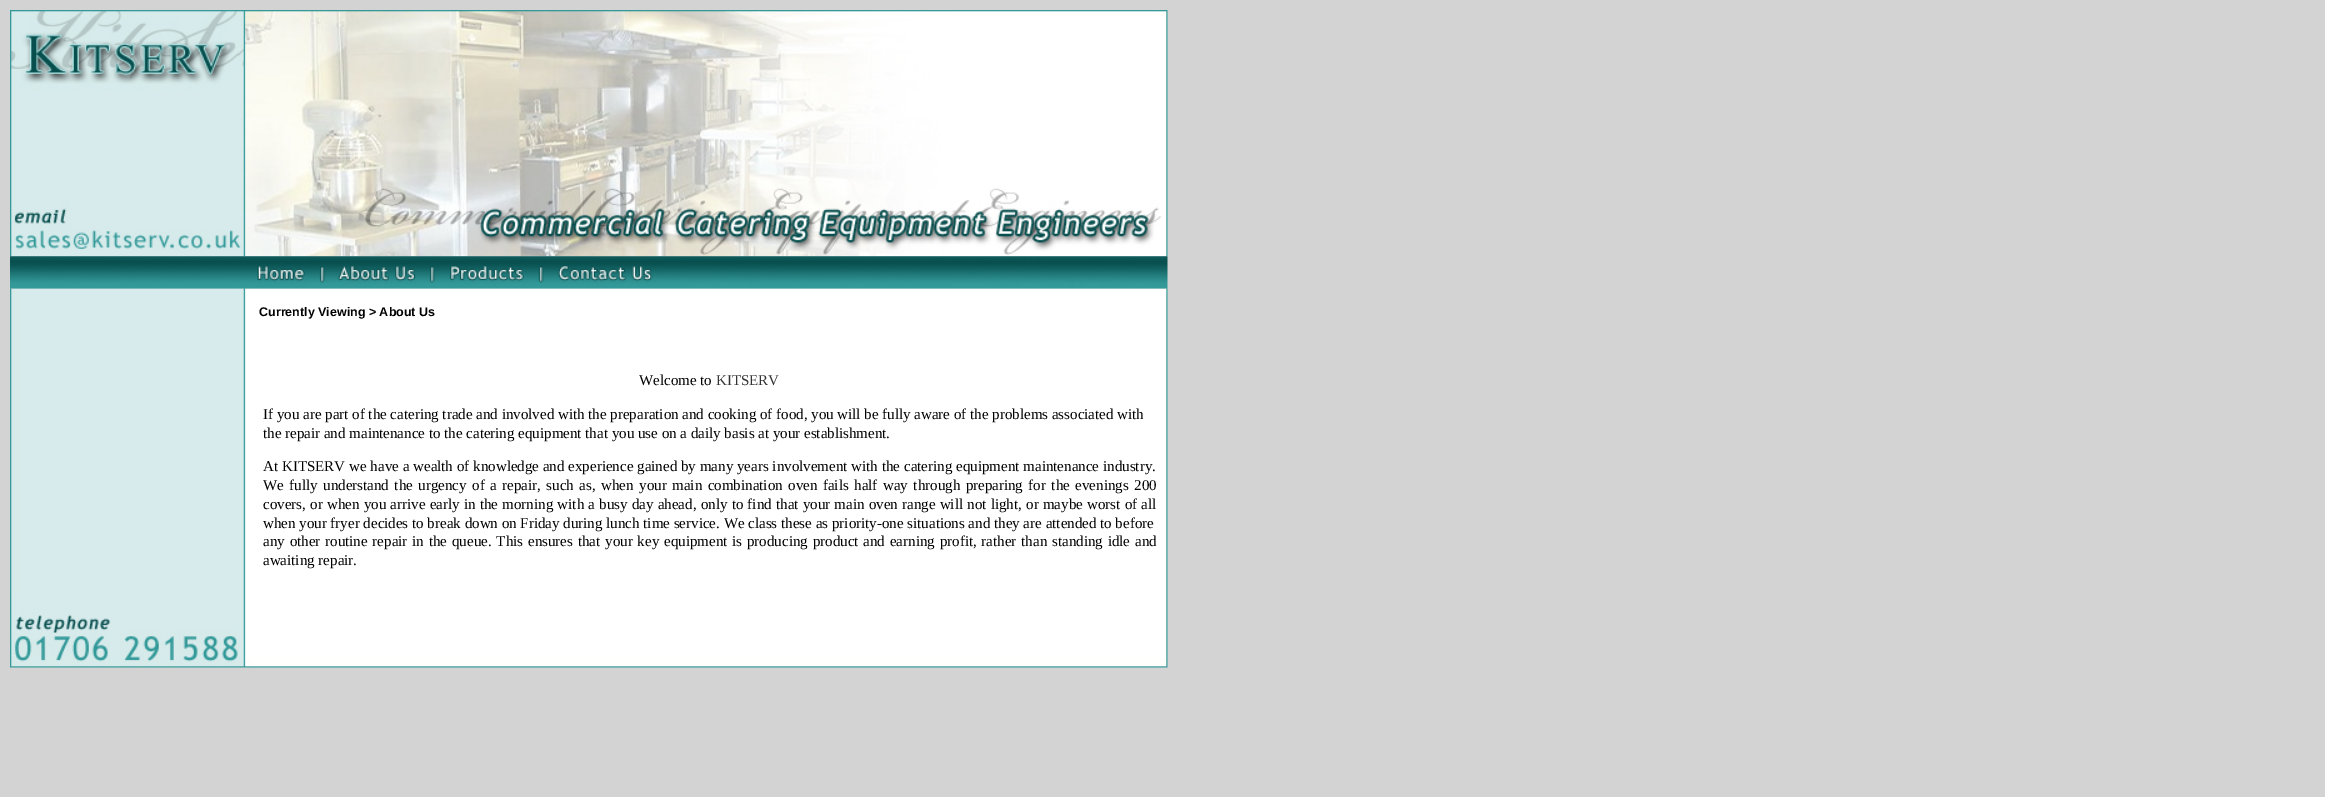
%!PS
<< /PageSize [2325 797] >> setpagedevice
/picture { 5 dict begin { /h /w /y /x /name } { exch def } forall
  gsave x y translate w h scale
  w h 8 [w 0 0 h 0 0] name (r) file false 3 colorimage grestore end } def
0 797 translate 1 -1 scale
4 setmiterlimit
0.827 setgray
0 0 2325 797 rectfill
(img1.rgb) 10 10 1158 247 picture
(img2.rgb) 10 256 1158 33 picture
(img3.rgb) 10 288 1158 380 picture
/LiberationSans-Bold [12.5 0 0 -12.5 0 0] selectfont
0 setgray
259 316 moveto (Currently Viewing > About Us) show
/LiberationSerif-Regular [15 0 0 -15 0 0] selectfont
639 385 moveto (Welcome to) show
0.2 setgray
716 385 moveto (KITSERV) show
0 setgray
263 419 moveto (If you are part of the catering trade and involved with the preparation and cooking of food, you will be fully aware of the problems associated with) show
263 438 moveto (the repair and maintenance to the catering equipment that you use on a daily basis at your establishment.) show
263 471 moveto 0.1 0 32 (At KITSERV we have a wealth of knowledge and experience gained by many years involvement with the catering equipment maintenance industry.) widthshow
263 490 moveto 1.75 0 32 (We fully understand the urgency of a repair, such as, when your main combination oven fails half way through preparing for the evenings 200) widthshow
263 509 moveto 0.5 0 32 (covers, or when you arrive early in the morning with a busy day ahead, only to find that your main oven range will not light, or maybe worst of all) widthshow
263 528 moveto (when your fryer decides to break down on Friday during lunch time service. We class these as priority-one situations and they are attended to before) show
263 546 moveto 1.1 0 32 (any other routine repair in the queue. This ensures that your key equipment is producing product and earning profit, rather than standing idle and) widthshow
263 565 moveto (awaiting repair.) show
showpage
